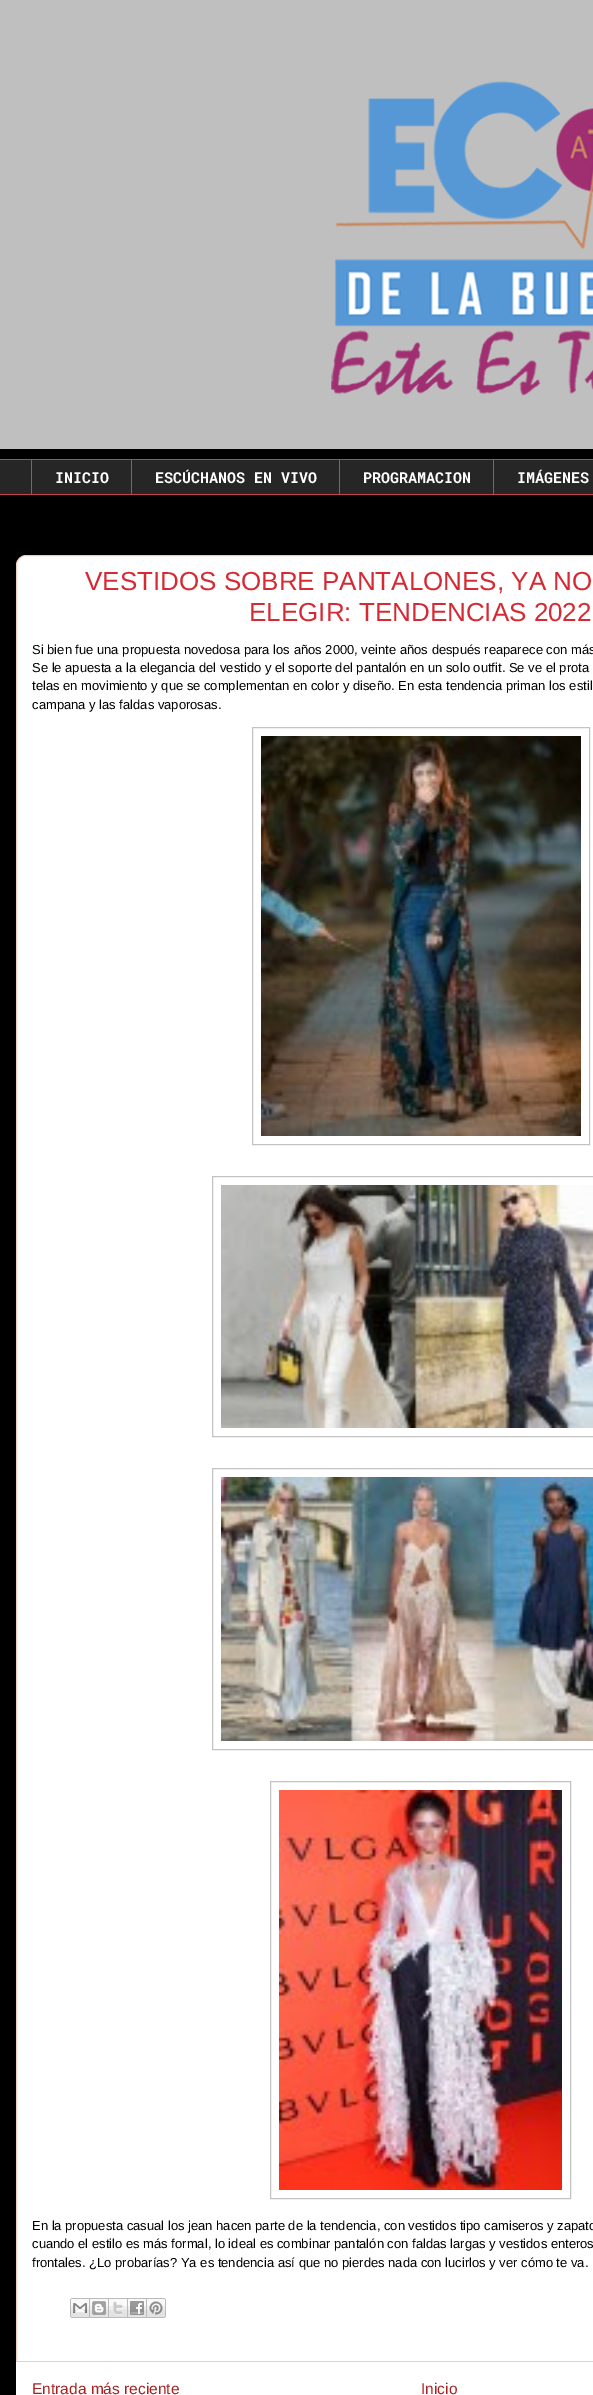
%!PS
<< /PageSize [593 2395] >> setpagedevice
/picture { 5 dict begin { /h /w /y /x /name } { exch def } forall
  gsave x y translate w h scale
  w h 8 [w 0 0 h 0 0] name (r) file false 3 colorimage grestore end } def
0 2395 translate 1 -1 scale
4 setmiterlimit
0 setgray
0 0 593 2395 rectfill
0.749 setgray
0 0 593 449 rectfill
(img1.rgb) 331 81 262 315 picture
0.149 setgray
0 460 593 34 rectfill
0.776 0.267 0.318 setrgbcolor
0 459 593 1 rectfill
31 459 1 36 rectfill
/RobotoMono-Bold [15 0 0 -15 0 0] selectfont
1 setgray
55 483 moveto (INICIO) show
0.776 0.267 0.318 setrgbcolor
131 459 1 36 rectfill
1 setgray
155 483 moveto (ESCÚCHANOS EN VIVO) show
0.776 0.267 0.318 setrgbcolor
339 459 1 36 rectfill
1 setgray
363 483 moveto (PROGRAMACION) show
0.776 0.267 0.318 setrgbcolor
493 459 1 36 rectfill
1 setgray
517 483 moveto (IMÁGENES) show
0.776 0.267 0.318 setrgbcolor
0 494 593 1 rectfill
1 setgray
newpath 26 555.5 moveto 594 555.5 lineto 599 555.5 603.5 560 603.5 565 curveto 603.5 2361.5 lineto 16.5 2361.5 lineto 16.5 565 lineto 16.5 560 21 555.5 26 555.5 curveto closepath gsave fill grestore
0.945 0.796 0.753 setrgbcolor
stroke
/LiberationSans-Regular [26 0 0 -26 0 0] selectfont
0.835 0.165 0.2 setrgbcolor
85 590 moveto (VESTIDOS SOBRE PANTALONES, YA NO) show
249 621 moveto (ELEGIR: TENDENCIAS 2022) show
/LiberationSans-Regular [13 0 0 -13 0 0] selectfont
0 setgray
32 654 moveto (Si bien fue una propuesta novedosa para los años 2000, veinte años después reaparece con más) show
32 672 moveto (Se le apuesta a la elegancia del vestido y el soporte del pantalón en un solo outfit. Se ve el prota) show
32 690 moveto (telas en movimiento y que se complementan en color y diseño. En esta tendencia priman los estil) show
32 709 moveto (campana y las faldas vaporosas.) show
0.765 setgray
252.5 727.5 337 417 rectstroke
(img2.rgb) 261 736 320 400 picture
212.5 1176.5 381 260 rectstroke
(img3.rgb) 221 1185 372 243 picture
212.5 1468.5 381 281 rectstroke
(img4.rgb) 221 1477 372 264 picture
270.5 1781.5 300 417 rectstroke
(img5.rgb) 279 1790 283 400 picture
0 setgray
32 2230 moveto (En la propuesta casual los jean hacen parte de la tendencia, con vestidos tipo camiseros y zapato) show
32 2248 moveto (cuando el estilo es más formal, lo ideal es combinar pantalón con faldas largas y vestidos enteros) show
32 2267 moveto (frontales. ¿Lo probarías? Ya es tendencia así que no pierdes nada con lucirlos y ver cómo te va.) show
(img6.rgb) 70 2298 20 20 picture
(img7.rgb) 90 2298 19 20 picture
(img8.rgb) 109 2298 19 20 picture
(img9.rgb) 128 2298 19 20 picture
(img10.rgb) 147 2298 19 20 picture
1 setgray
16 2362 577 33 rectfill
/LiberationSans-Regular [15.5 0 0 -15.5 0 0] selectfont
0.659 0.129 0.129 setrgbcolor
32 2394 moveto (Entrada más reciente) show
421 2394 moveto (Inicio) show
showpage
